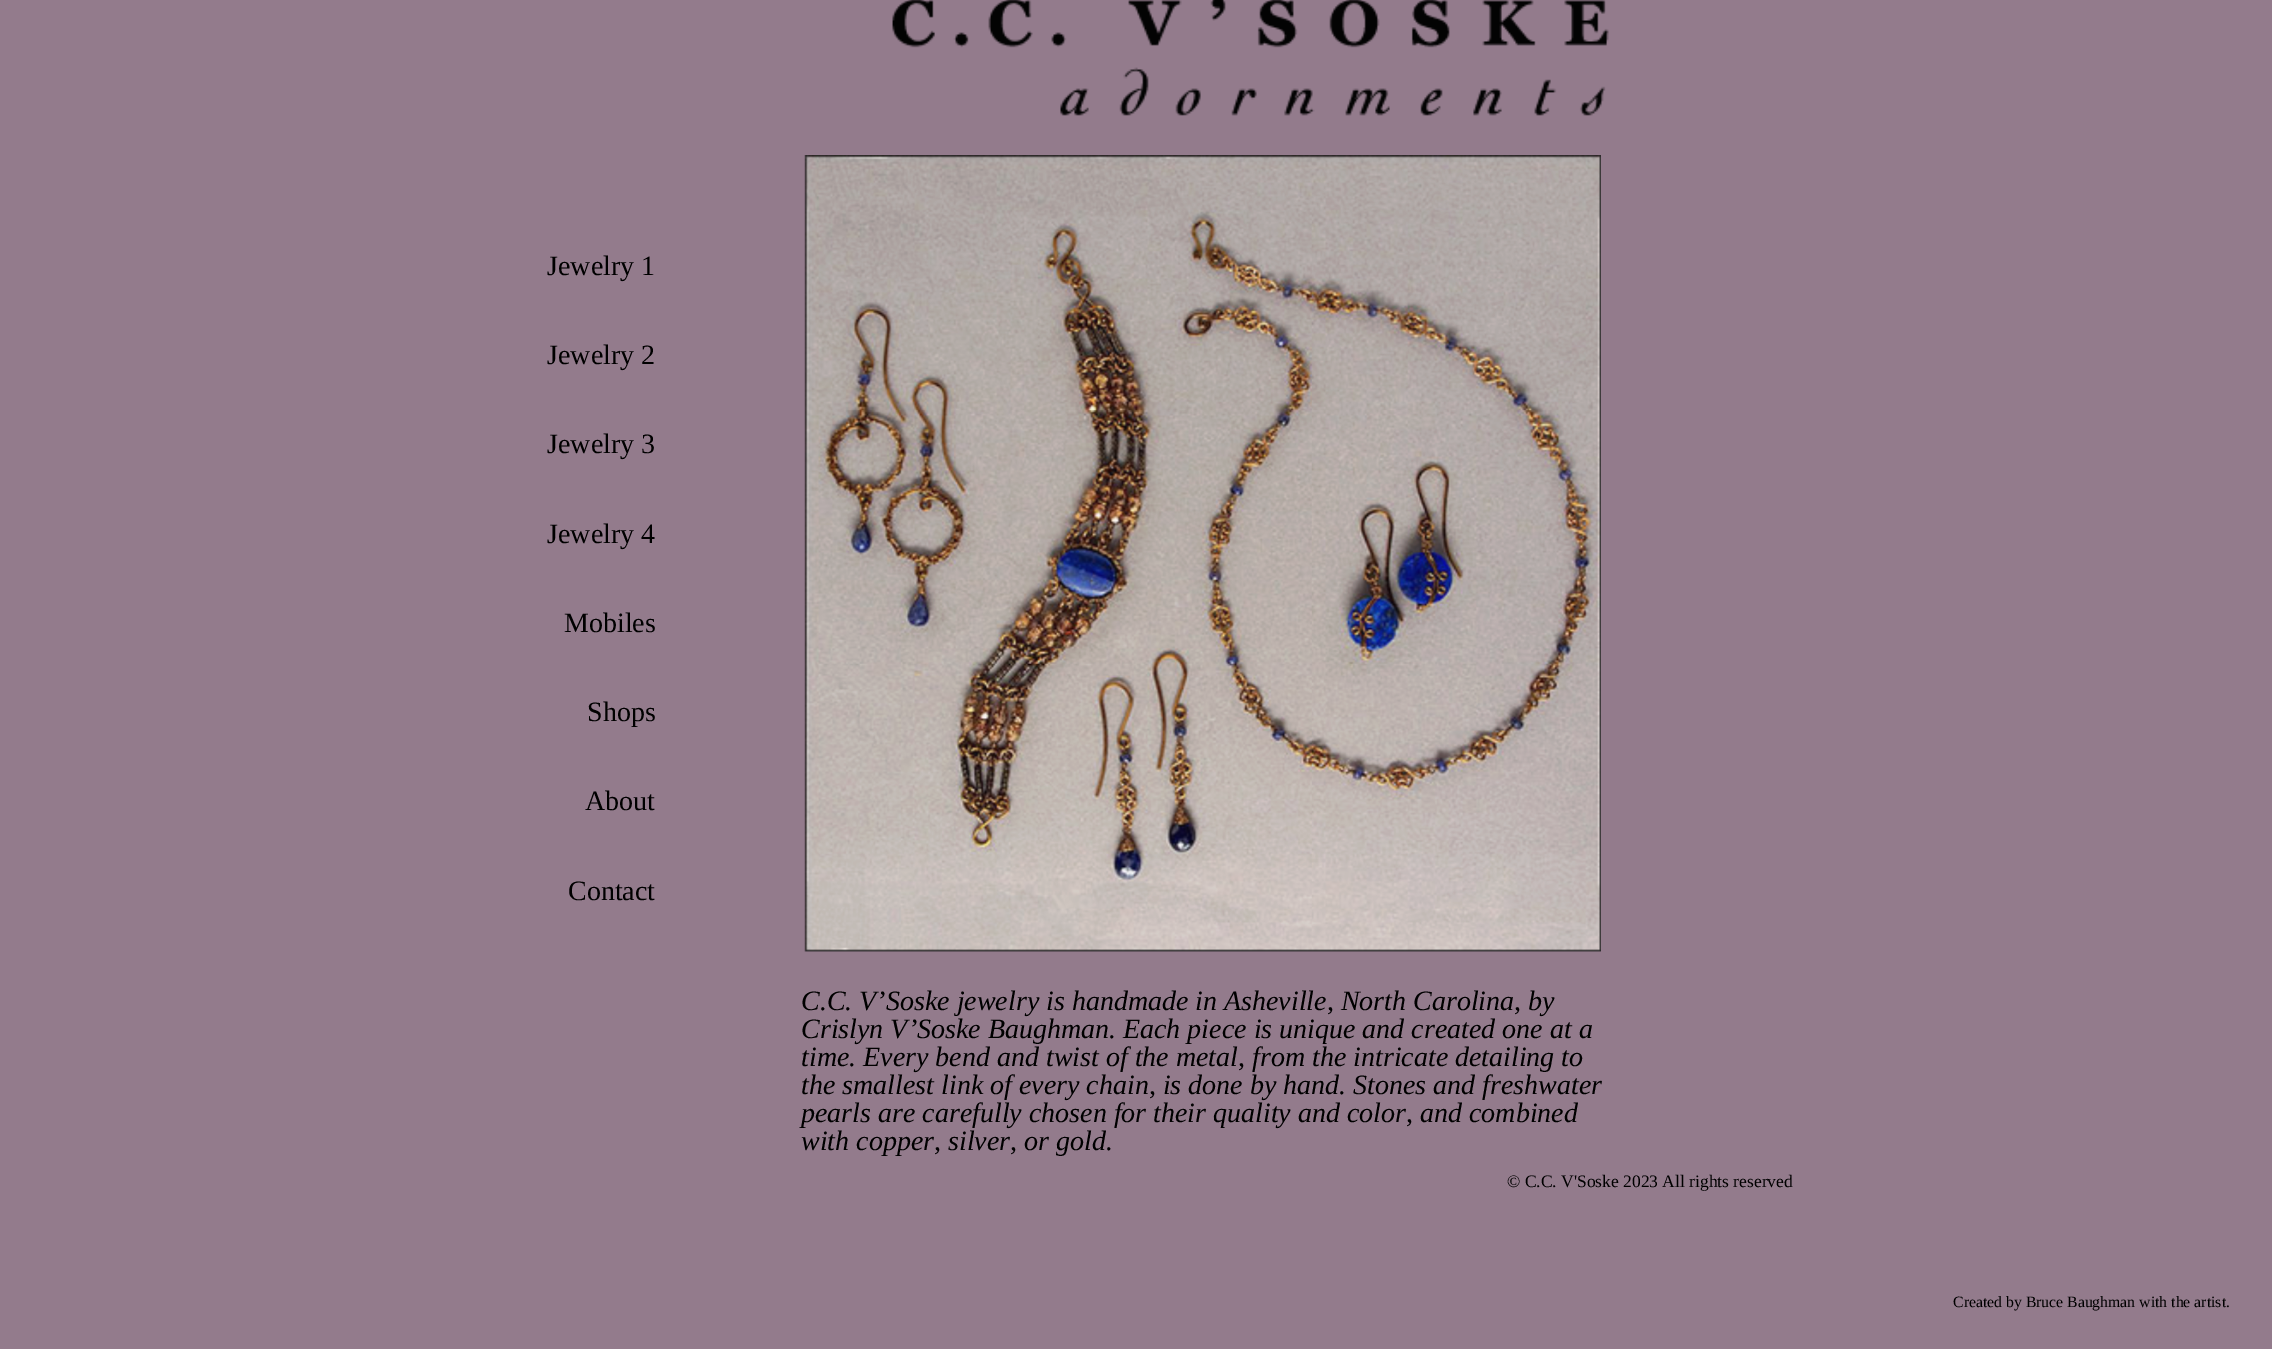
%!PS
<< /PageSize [2272 1349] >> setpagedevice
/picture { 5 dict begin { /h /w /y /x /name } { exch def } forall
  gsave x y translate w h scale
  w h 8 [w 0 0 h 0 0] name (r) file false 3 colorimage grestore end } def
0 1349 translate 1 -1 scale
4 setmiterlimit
0.576 0.482 0.549 setrgbcolor
0 0 2272 1349 rectfill
(img1.rgb) 892 0 717 116 picture
/LiberationSerif-Regular [28 0 0 -28 0 0] selectfont
0 setgray
547 275 moveto (Jewelry 1) show
547 364 moveto (Jewelry 2) show
547 453 moveto (Jewelry 3) show
547 543 moveto (Jewelry 4) show
564 632 moveto (Mobiles) show
587 721 moveto (Shops) show
585 810 moveto (About) show
568 900 moveto (Contact) show
(img2.rgb) 804 155 797 797 picture
/LiberationSerif-Italic [28 0 0 -28 0 0] selectfont
801 1010 moveto (C.C. V’Soske jewelry is handmade in Asheville, North Carolina, by) show
801 1038 moveto (Crislyn V’Soske Baughman. Each piece is unique and created one at a) show
801 1066 moveto (time. Every bend and twist of the metal, from the intricate detailing to) show
801 1094 moveto (the smallest link of every chain, is done by hand. Stones and freshwater) show
801 1122 moveto (pearls are carefully chosen for their quality and color, and combined) show
801 1150 moveto (with copper, silver, or gold.) show
/LiberationSerif-Regular [17.5 0 0 -17.5 0 0] selectfont
1507 1187 moveto (© C.C. V'Soske 2023 All rights reserved) show
/LiberationSerif-Regular [15.75 0 0 -15.75 0 0] selectfont
1953 1307 moveto (Created by Bruce Baughman with the artist.) show
showpage
